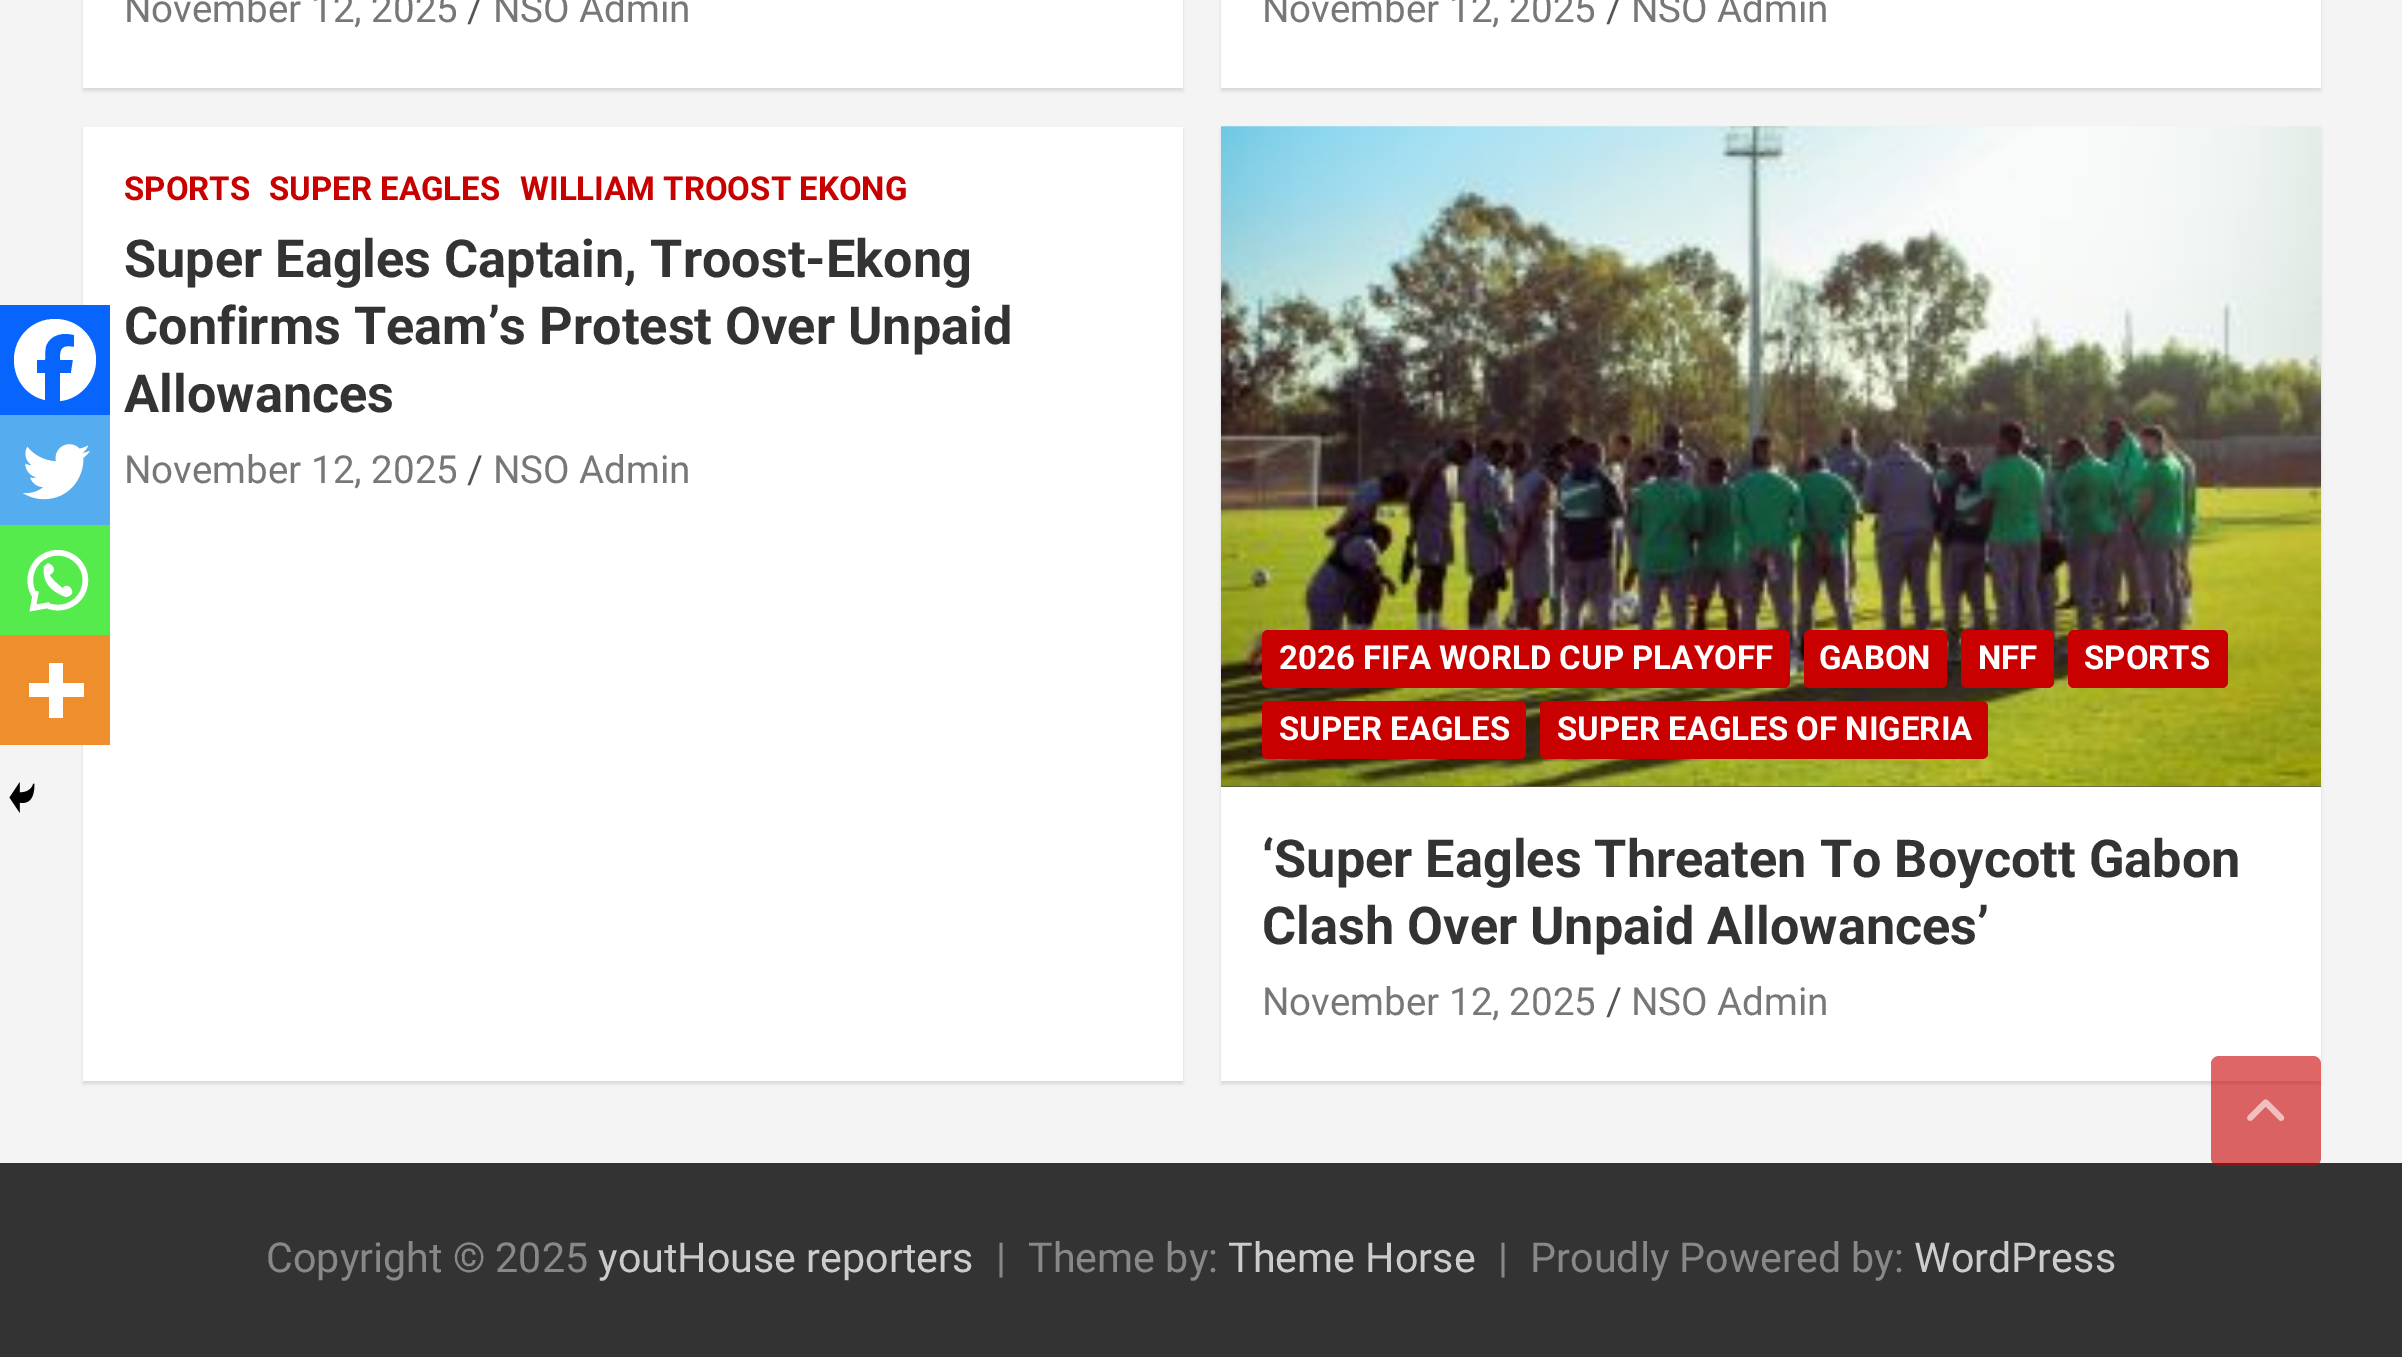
%!PS
<< /PageSize [2402 1357] /PageUsesTransparency true >> setpagedevice
/alpha { dup .setfillconstantalpha .setstrokeconstantalpha } def
/roundrect { 5 dict begin { /r /h /w /y /x } { exch def } forall
  x r add y moveto x w add y 2 copy h add r arct x w add y h add x 1 index r arct
  x y h add x y r arct x y 2 copy exch w add exch r arct closepath end } def
/shadow { 12 dict begin { /a /b /q /h /w /y /x } { exch def } forall gsave /was 0 def
  9 -2 -9 { dup b mul 4 div /e exch def 1 sub .425 mul 2.718 exch exp 1 add a .99 .min exch div /now exch def
    1 1 now sub 1 was sub div sub alpha /was now def
    w h .min e 2 mul add 0 gt { x e sub y e sub w e 2 mul add h e 2 mul add
      q e add b .6 mul add w h .min 2 div e add .min 0 .max roundrect fill } if } for grestore end } def
/picture { 5 dict begin { /h /w /y /x /name } { exch def } forall
  gsave x y translate w h scale
  w h 8 [w 0 0 h 0 0] name (r) file false 3 colorimage grestore end } def
0 .pushpdf14devicefilter
0 1357 translate 1 -1 scale
4 setmiterlimit
0.957 setgray
0 0 2402 1357 rectfill
0 setgray
83 129 1100 955 0 1.5 0.1 shadow
1 setgray
83 127 1100 954 rectfill
0.027 0.396 0.996 setrgbcolor
0 305 110 110 rectfill
1 setgray
newpath 96 360 moveto 96 337 78 319 55 319 curveto 32 319 14 337 14 360 curveto 14 380 27 396 45 400 curveto 45 373 lineto 37 373 lineto 37 360 lineto 45 360 lineto 45 355 45 350 46 346 curveto 50 334 64 332 74 335 curveto 74 347 lineto 62 345 60 348 60 360 curveto 73 360 lineto 71 373 lineto 60 373 lineto 60 401 lineto 80 399 96 381 96 360 curveto closepath fill
0.333 0.675 0.933 setrgbcolor
0 415 110 110 rectfill
(img1.rgb) 22 444 69 56 picture
0.333 0.922 0.298 setrgbcolor
0 525 110 110 rectfill
1 setgray
5.5 setlinewidth
newpath 48.5 606 moveto 61 610.5 75.5 605.5 82 593.5 curveto 88.5 581.5 85.5 566.5 74.5 558.5 curveto 63.5 550 48.5 551 38.5 560.5 curveto 29 570 27.5 585 35 596 curveto 36 591 moveto 33 608 lineto 49.5 605 lineto stroke
newpath 44 566.5 moveto 42 581 49.5 591 66 597 curveto 80 594 66 580 63 588.5 curveto 56 583 51.5 578.5 49.5 575 curveto 60.5 569 47 561 47 564 curveto fill
0.933 0.557 0.176 setrgbcolor
0 635 110 110 rectfill
1 setgray
newpath 63 683 moveto 63 663 lineto 49 663 lineto 49 683 lineto 29 683 lineto 29 697 lineto 49 697 lineto 49 718 lineto 63 718 lineto 63 697 lineto 84 697 lineto 84 683 lineto closepath eofill
(img2.rgb) 9 782 26 31 picture
0 setgray
83 -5 1100 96 0 1.5 0.1 shadow
1 setgray
83 0 1100 88 rectfill
/Roboto-Regular [38.5 0 0 -38.5 0 0] selectfont
0.467 setgray
124 22 moveto (November 12, 2025) show
0.333 setgray
467 22 moveto (/) show
0.467 setgray
493 22 moveto (NSO Admin) show
0 setgray
1221 -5 1100 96 0 1.5 0.1 shadow
1 setgray
1221 0 1100 88 rectfill
0.467 setgray
1262 22 moveto (November 12, 2025) show
0.333 setgray
1606 22 moveto (/) show
0.467 setgray
1631 22 moveto (NSO Admin) show
/Roboto-Bold [33 0 0 -33 0 0] selectfont
0.784 0 0 setrgbcolor
124 200 moveto (SPORTS) show
269 200 moveto (SUPER EAGLES) show
520 200 moveto (WILLIAM TROOST EKONG) show
/Roboto-Bold [52.25 0 0 -52.25 0 0] selectfont
0.2 setgray
124 277 moveto (Super Eagles Captain, Troost-Ekong) show
124 344 moveto (Confirms Team’s Protest Over Unpaid) show
124 412 moveto (Allowances) show
/Roboto-Regular [38.5 0 0 -38.5 0 0] selectfont
0.467 setgray
124 483 moveto (November 12, 2025) show
0.333 setgray
467 483 moveto (/) show
0.467 setgray
493 483 moveto (NSO Admin) show
0 setgray
1221 129 1100 955 0 1.5 0.1 shadow
1 setgray
1221 787 1100 294 rectfill
0.333 setgray
1221 786 1100 1 rectfill
(img3.rgb) 1221 126 1100 661 picture
0.784 0 0 setrgbcolor
1262 630 528 58 6 roundrect fill
/Roboto-Bold [33 0 0 -33 0 0] selectfont
1 setgray
1279 669 moveto (2026 FIFA WORLD CUP PLAYOFF) show
0.784 0 0 setrgbcolor
1804 630 143 58 6 roundrect fill
1 setgray
1819 669 moveto (GABON) show
0.784 0 0 setrgbcolor
1961 630 93 58 6 roundrect fill
1 setgray
1978 669 moveto (NFF) show
0.784 0 0 setrgbcolor
2068 630 160 58 6 roundrect fill
1 setgray
2084 669 moveto (SPORTS) show
0.784 0 0 setrgbcolor
1262 701 264 58 6 roundrect fill
1 setgray
1279 740 moveto (SUPER EAGLES) show
0.784 0 0 setrgbcolor
1540 701 448 58 6 roundrect fill
1 setgray
1557 740 moveto (SUPER EAGLES OF NIGERIA) show
/Roboto-Bold [52.25 0 0 -52.25 0 0] selectfont
0.2 setgray
1262 877 moveto (‘Super Eagles Threaten To Boycott Gabon) show
1262 944 moveto (Clash Over Unpaid Allowances’) show
/Roboto-Regular [38.5 0 0 -38.5 0 0] selectfont
0.467 setgray
1262 1015 moveto (November 12, 2025) show
0.333 setgray
1606 1015 moveto (/) show
0.467 setgray
1631 1015 moveto (NSO Admin) show
0.2 setgray
0 1163 2402 194 rectfill
/Roboto-Regular [41.25 0 0 -41.25 0 0] selectfont
0.533 setgray
266 1272 moveto (Copyright © 2025) show
0.8 setgray
598 1272 moveto (youtHouse reporters) show
0.533 setgray
996 1272 moveto (|) show
1028 1272 moveto (Theme by:) show
0.8 setgray
1228 1272 moveto (Theme Horse) show
0.533 setgray
1498 1272 moveto (|) show
1530 1272 moveto (Proudly Powered by:) show
0.8 setgray
1914 1272 moveto (WordPress) show
0.6 alpha
0.784 0 0 setrgbcolor
2211 1056 110 110 8 roundrect fill
1 alpha
(img4.rgb) 2247 1099 38 22 picture
.poppdf14devicefilter showpage
